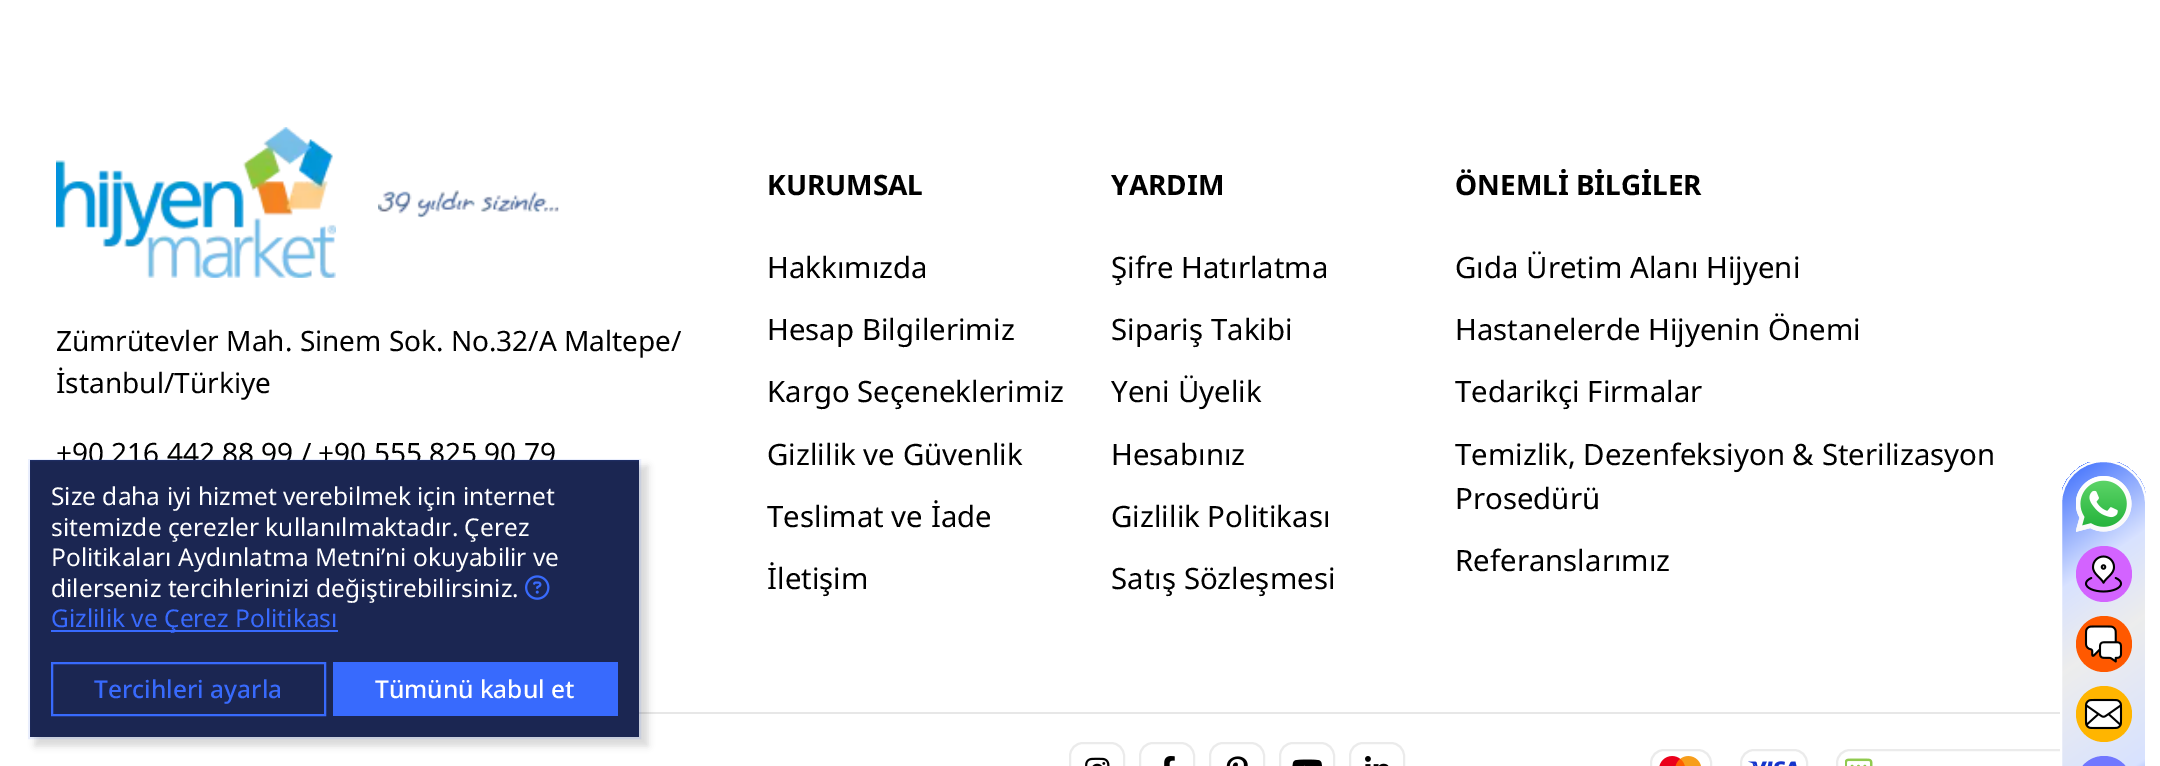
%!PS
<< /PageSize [2160 766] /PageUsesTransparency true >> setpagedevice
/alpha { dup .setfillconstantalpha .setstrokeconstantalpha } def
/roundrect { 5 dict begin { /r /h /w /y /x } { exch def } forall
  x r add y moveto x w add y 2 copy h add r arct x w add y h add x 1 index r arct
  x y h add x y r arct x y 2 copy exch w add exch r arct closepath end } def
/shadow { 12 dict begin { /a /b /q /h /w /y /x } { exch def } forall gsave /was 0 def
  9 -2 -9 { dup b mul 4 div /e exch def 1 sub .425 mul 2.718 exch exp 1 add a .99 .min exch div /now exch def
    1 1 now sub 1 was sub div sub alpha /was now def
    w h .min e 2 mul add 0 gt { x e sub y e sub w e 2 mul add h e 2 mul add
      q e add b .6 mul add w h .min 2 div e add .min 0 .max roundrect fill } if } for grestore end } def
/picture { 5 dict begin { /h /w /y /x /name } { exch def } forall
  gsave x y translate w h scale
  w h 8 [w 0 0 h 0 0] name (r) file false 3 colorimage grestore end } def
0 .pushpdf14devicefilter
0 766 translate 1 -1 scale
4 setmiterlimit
1 setgray
0 0 2160 766 rectfill
(img1.rgb) 56 127 280 151 picture
(img2.rgb) 378 190 181 28 picture
/NotoSans-Regular [28 0 0 -28 0 0] selectfont
0 setgray
56 351 moveto (Zümrütevler Mah. Sinem Sok. No.32/A Maltepe/) show
56 393 moveto (İstanbul/Türkiye) show
56 463 moveto (+90 216 442 88 99 / +90 555 825 90 79) show
/NotoSans-Bold [28 0 0 -28 0 0] selectfont
767 195 moveto (KURUMSAL) show
/NotoSans-Regular [29.4 0 0 -29.4 0 0] selectfont
767 278 moveto (Hakkımızda) show
767 340 moveto (Hesap Bilgilerimiz) show
767 402 moveto (Kargo Seçeneklerimiz) show
767 465 moveto (Gizlilik ve Güvenlik) show
767 527 moveto (Teslimat ve İade) show
767 589 moveto (İletişim) show
/NotoSans-Bold [28 0 0 -28 0 0] selectfont
1111 195 moveto (YARDIM) show
/NotoSans-Regular [29.4 0 0 -29.4 0 0] selectfont
1111 278 moveto (Şifre Hatırlatma) show
1111 340 moveto (Sipariş Takibi) show
1111 402 moveto (Yeni Üyelik) show
1111 465 moveto (Hesabınız) show
1111 527 moveto (Gizlilik Politikası) show
1111 589 moveto (Satış Sözleşmesi) show
/NotoSans-Bold [28 0 0 -28 0 0] selectfont
1455 195 moveto (ÖNEMLİ BİLGİLER) show
/NotoSans-Regular [29.4 0 0 -29.4 0 0] selectfont
1455 278 moveto (Gıda Üretim Alanı Hijyeni) show
1455 340 moveto (Hastanelerde Hijyenin Önemi) show
1455 402 moveto (Tedarikçi Firmalar) show
1455 465 moveto (Temizlik, Dezenfeksiyon & Sterilizasyon) show
1455 509 moveto (Prosedürü) show
1455 571 moveto (Referanslarımız) show
0.906 setgray
639 712 1421 2 rectfill
0.922 setgray
2 setlinewidth
1070 743 54 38 13 roundrect stroke
(img3.rgb) 1085 757 25 9 picture
1140 743 54 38 13 roundrect stroke
(img4.rgb) 1164 756 11 10 picture
1210 743 54 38 13 roundrect stroke
(img5.rgb) 1226 756 22 10 picture
1280 743 54 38 13 roundrect stroke
(img6.rgb) 1292 759 30 7 picture
1350 743 54 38 13 roundrect stroke
(img7.rgb) 1365 756 24 10 picture
1651 750 60 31 13 roundrect stroke
(img8.rgb) 1659 756 42 10 picture
1741 750 66 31 13 roundrect stroke
(img9.rgb) 1748 761 49 5 picture
1837 750 267 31 13 roundrect stroke
(img10.rgb) 1845 758 28 8 picture
0 setgray
35 466 613 280 0 3.5 0.15 shadow
0.106 0.149 0.322 setrgbcolor
30 460 609 277 rectfill
0.1 alpha
0.22 0.416 0.992 setrgbcolor
29 460 611 278 rectstroke
/NotoSans-Regular [24.5 0 0 -24.5 0 0] selectfont
1 alpha
1 setgray
51 505 moveto (Size daha iyi hizmet verebilmek için internet) show
51 536 moveto (sitemizde çerezler kullanılmaktadır. Çerez) show
51 566 moveto (Politikaları Aydınlatma Metni’ni okuyabilir ve) show
51 597 moveto (dilerseniz tercihlerinizi değiştirebilirsiniz.) show
(img11.rgb) 525 575 25 25 picture
0.22 0.416 0.992 setrgbcolor
51 630 287 2 rectfill
51 627 moveto (Gizlilik ve Çerez Politikası) show
52 663 273 52 rectstroke
/NotoSans-Medium [24.5 0 0 -24.5 0 0] selectfont
94 698 moveto (Tercihleri ayarla) show
333 662 285 54 rectfill
1 setgray
375 698 moveto (Tümünü kabul et) show
gsave
2060 460 87 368 43.5 roundrect clip newpath
gsave newpath 2062 462 moveto 2146 462 lineto 2146 766 lineto 2062 766 lineto closepath clip newpath
<< /ShadingType 2 /ColorSpace /DeviceRGB /Coords [2004 502 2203 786] /Extend [true true] /Function << /FunctionType 3 /Domain [0 1] /Functions [<< /FunctionType 2 /Domain [0 1] /C0 [0.22 0.416 0.992] /C1 [0.847 0.886 1] /N 1 >> << /FunctionType 2 /Domain [0 1] /C0 [0.847 0.886 1] /C1 [0.929 0.929 0.929] /N 1 >> << /FunctionType 2 /Domain [0 1] /C0 [0.929 0.929 0.929] /C1 [0.847 0.886 1] /N 1 >> << /FunctionType 2 /Domain [0 1] /C0 [0.847 0.886 1] /C1 [0.22 0.416 0.992] /N 1 >> << /FunctionType 2 /Domain [0 1] /C0 [0.22 0.416 0.992] /C1 [0.22 0.416 0.992] /N 1 >>] /Bounds [0.3 0.5 0.84 0.96] /Encode [0 1 0 1 0 1 0 1 0 1] >> >> shfill grestore
grestore
2061 461 85 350 42.5 roundrect stroke
(img12.rgb) 2076 476 56 56 picture
0.827 0.388 1 setrgbcolor
newpath 2104 574 28 0 360 arc closepath fill
(img13.rgb) 2084 555 39 38 picture
1 0.349 0 setrgbcolor
newpath 2104 644 28 0 360 arc closepath fill
(img14.rgb) 2084 625 39 38 picture
1 0.71 0 setrgbcolor
newpath 2104 714 28 0 360 arc closepath fill
(img15.rgb) 2084 698 39 32 picture
0.443 0.467 1 setrgbcolor
2076 756 56 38 28 roundrect fill
.poppdf14devicefilter showpage
